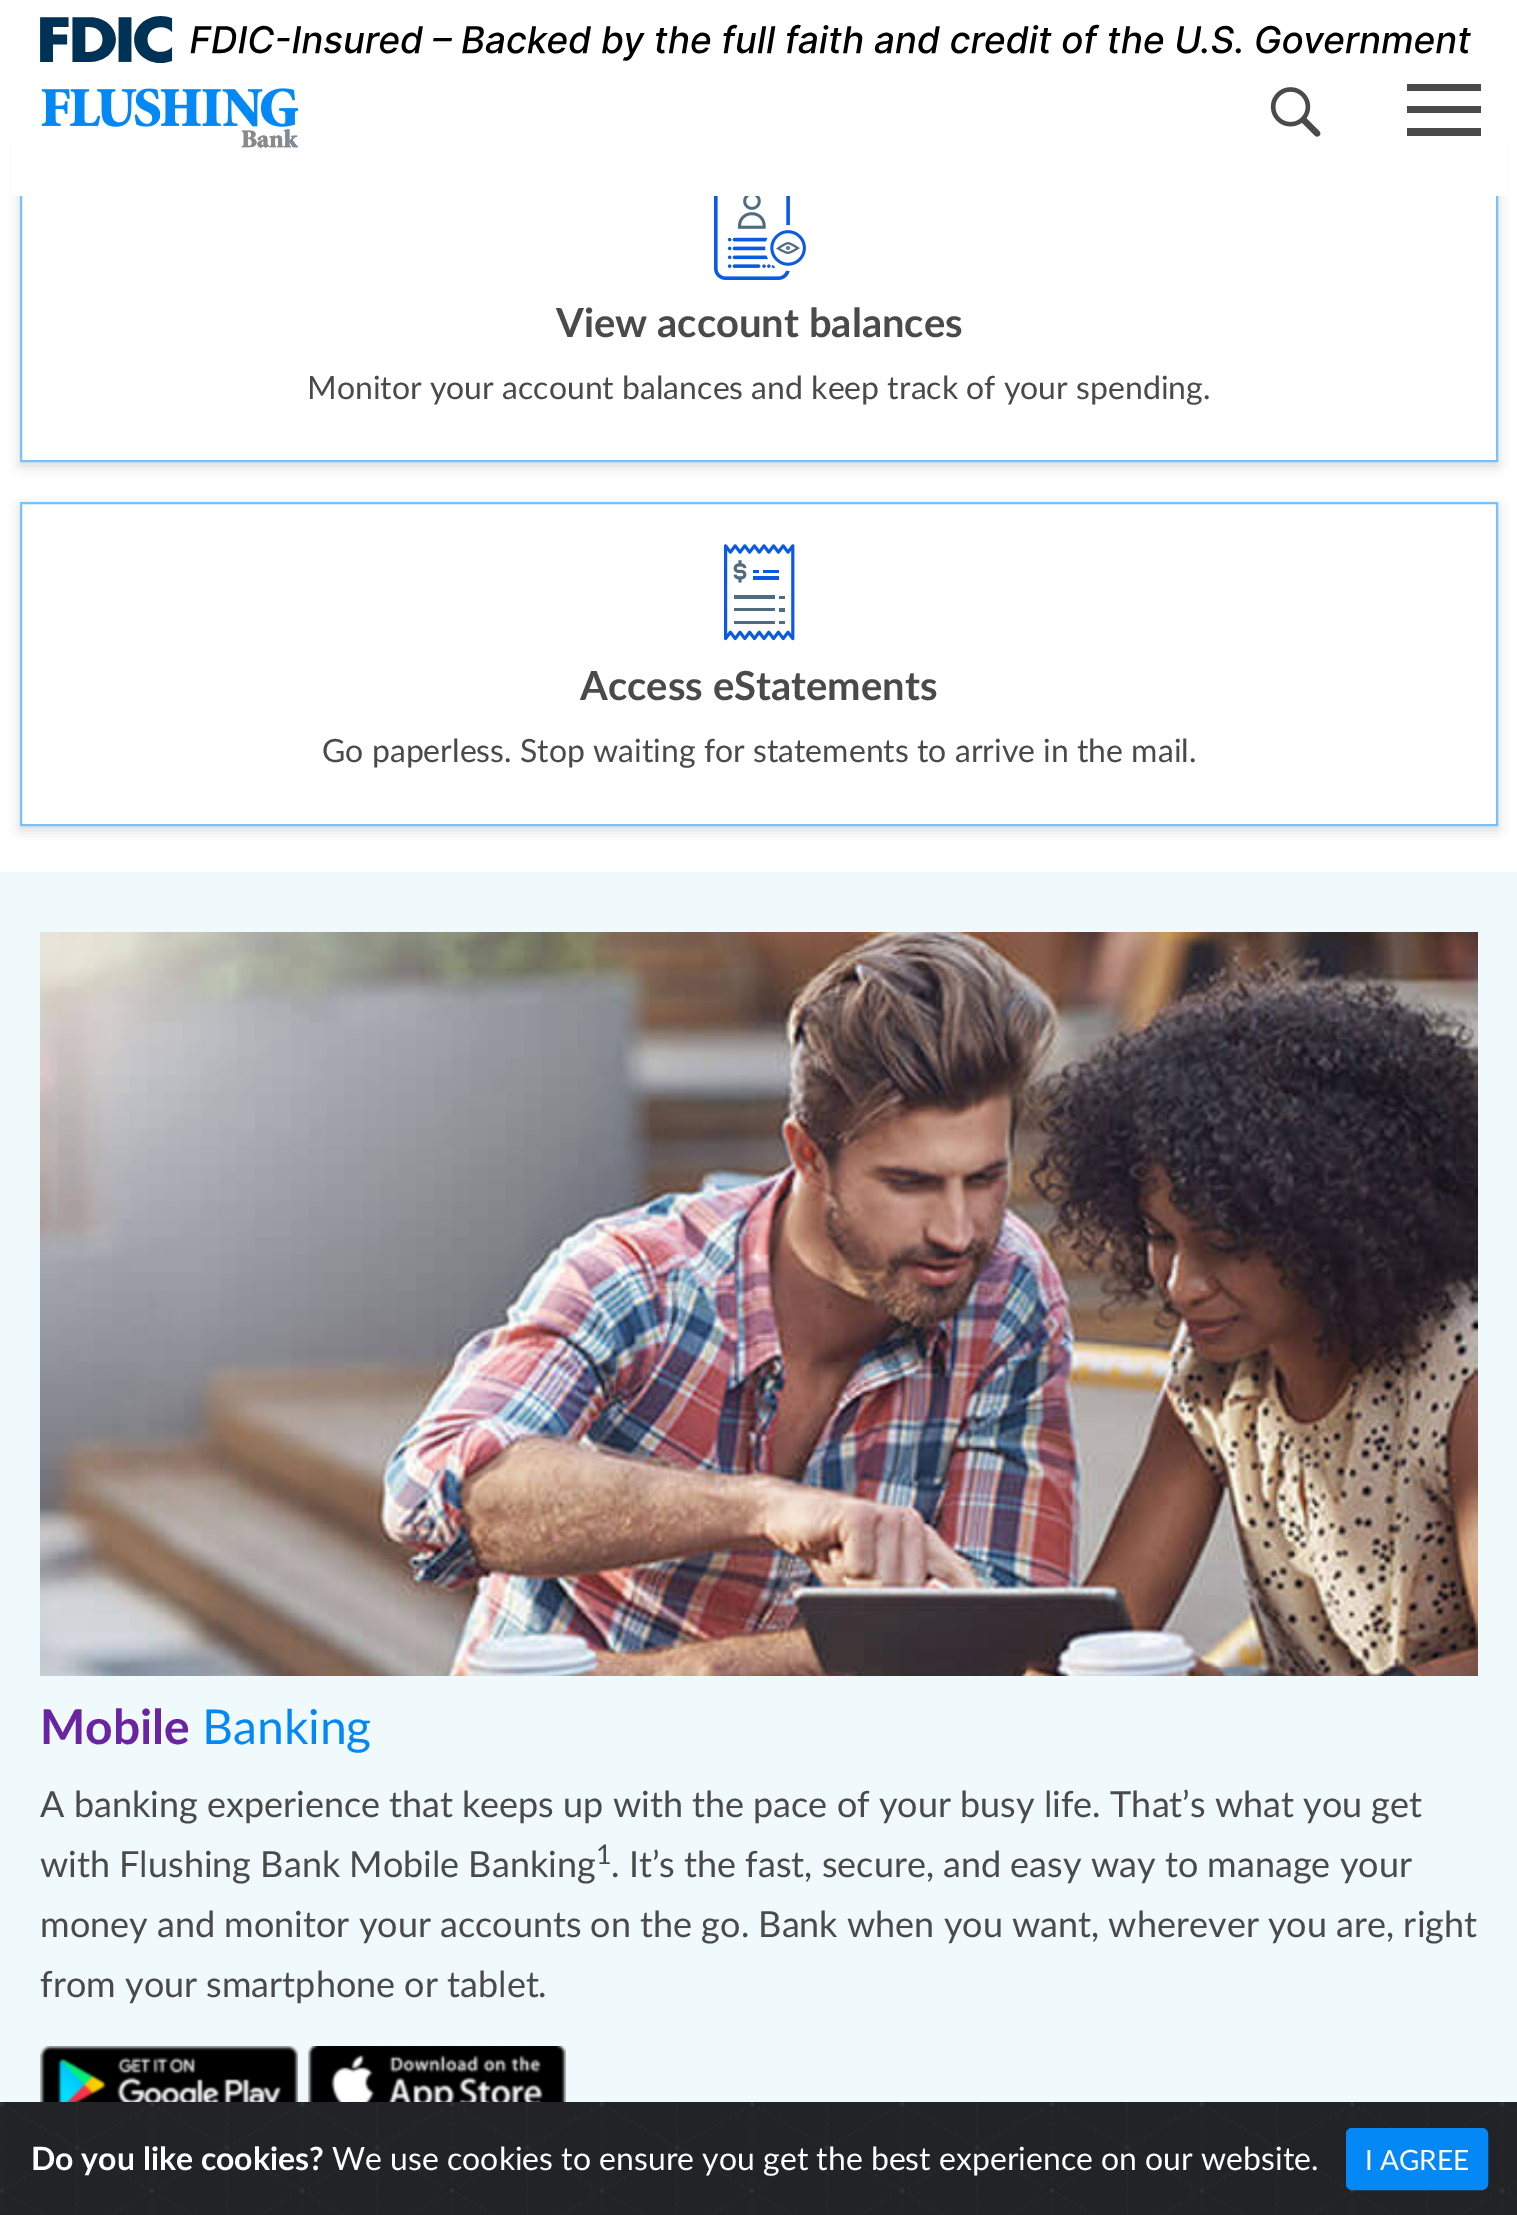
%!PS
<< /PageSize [1517 2215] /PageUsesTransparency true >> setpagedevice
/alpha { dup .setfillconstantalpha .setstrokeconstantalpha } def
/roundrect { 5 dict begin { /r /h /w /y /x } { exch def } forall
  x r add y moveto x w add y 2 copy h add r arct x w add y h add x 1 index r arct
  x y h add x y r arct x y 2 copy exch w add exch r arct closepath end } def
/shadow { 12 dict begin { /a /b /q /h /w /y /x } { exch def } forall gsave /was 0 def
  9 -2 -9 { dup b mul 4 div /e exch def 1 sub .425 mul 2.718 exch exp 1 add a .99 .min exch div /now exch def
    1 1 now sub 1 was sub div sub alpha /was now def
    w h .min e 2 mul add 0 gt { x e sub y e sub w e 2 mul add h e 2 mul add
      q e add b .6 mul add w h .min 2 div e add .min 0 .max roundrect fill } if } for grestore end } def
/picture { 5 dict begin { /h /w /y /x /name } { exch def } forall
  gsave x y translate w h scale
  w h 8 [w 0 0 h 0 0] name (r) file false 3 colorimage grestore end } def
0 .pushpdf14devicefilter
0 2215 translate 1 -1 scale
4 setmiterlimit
1 setgray
0 0 1517 2215 rectfill
gsave
newpath 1 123 moveto 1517 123 lineto 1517 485 lineto 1 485 lineto closepath 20 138 moveto 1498 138 lineto 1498 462 lineto 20 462 lineto closepath eoclip newpath
0 setgray
20 142 1478 324 0 6 0.15 shadow
grestore
0.467 0.757 1 setrgbcolor
2 setlinewidth
21 139 1476 322 rectstroke
1 setgray
11 133 1496 63 rectfill
(img1.rgb) 40 16 1431 47 picture
(img2.rgb) 41 88 257 60 picture
(img3.rgb) 1270 87 51 50 picture
0.29 setgray
newpath 1407 84 moveto 1481 84 lineto 1481 91 lineto 1407 91 lineto closepath 1407 106 moveto 1481 106 lineto 1481 113 lineto 1407 113 lineto closepath 1407 128 moveto 1481 128 lineto 1481 136 lineto 1407 136 lineto closepath fill
(img4.rgb) 714 196 92 84 picture
/Lato-Bold [40 0 0 -40 0 0] selectfont
556 337 moveto (View account balances) show
/Lato-Regular [32 0 0 -32 0 0] selectfont
307 399 moveto (Monitor your account balances and keep track of your spending.) show
gsave
newpath 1 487 moveto 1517 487 lineto 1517 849 lineto 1 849 lineto closepath 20 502 moveto 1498 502 lineto 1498 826 lineto 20 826 lineto closepath eoclip newpath
0 setgray
20 506 1478 324 0 6 0.15 shadow
grestore
0.467 0.757 1 setrgbcolor
21 503 1476 322 rectstroke
(img5.rgb) 724 544 71 97 picture
/Lato-Bold [40 0 0 -40 0 0] selectfont
0.29 setgray
580 700 moveto (Access eStatements) show
/Lato-Regular [32 0 0 -32 0 0] selectfont
322 762 moveto (Go paperless. Stop waiting for statements to arrive in the mail.) show
0.941 0.976 0.984 setrgbcolor
0 872 1517 1230 rectfill
(img6.rgb) 40 932 1438 744 picture
/Lato-Bold [48 0 0 -48 0 0] selectfont
0.412 0.141 0.643 setrgbcolor
40 1744 moveto (Mobile) show
/Lato-Regular [48 0 0 -48 0 0] selectfont
0.012 0.533 0.965 setrgbcolor
202 1744 moveto (Banking) show
/Lato-Regular [36 0 0 -36 0 0] selectfont
0.29 setgray
40 1817 moveto (A banking experience that keeps up with the pace of your busy life. That’s what you get) show
40 1877 moveto (with Flushing Bank Mobile Banking) show
/Lato-Regular [27 0 0 -27 0 0] selectfont
596 1864 moveto (1) show
/Lato-Regular [36 0 0 -36 0 0] selectfont
611 1877 moveto (. It’s the fast, secure, and easy way to manage your) show
40 1937 moveto (money and monitor your accounts on the go. Bank when you want, wherever you are, right) show
40 1997 moveto (from your smartphone or tablet.) show
(img7.rgb) 40 2046 258 56 picture
(img8.rgb) 308 2046 258 56 picture
0.129 0.137 0.153 setrgbcolor
1515 2102 2 113 rectfill
(img9.rgb) 0 2102 1515 113 picture
/Lato-Bold [32 0 0 -32 0 0] selectfont
1 setgray
31 2170 moveto (Do you like cookies?) show
/Lato-Regular [32 0 0 -32 0 0] selectfont
332 2170 moveto (We use cookies to ensure you get the best experience on our website.) show
0.012 0.533 0.965 setrgbcolor
1347 2129 140 60 5 roundrect gsave fill grestore
stroke
/Lato-Regular [28 0 0 -28 0 0] selectfont
1 setgray
1365 2170 moveto (I AGREE) show
.poppdf14devicefilter showpage
